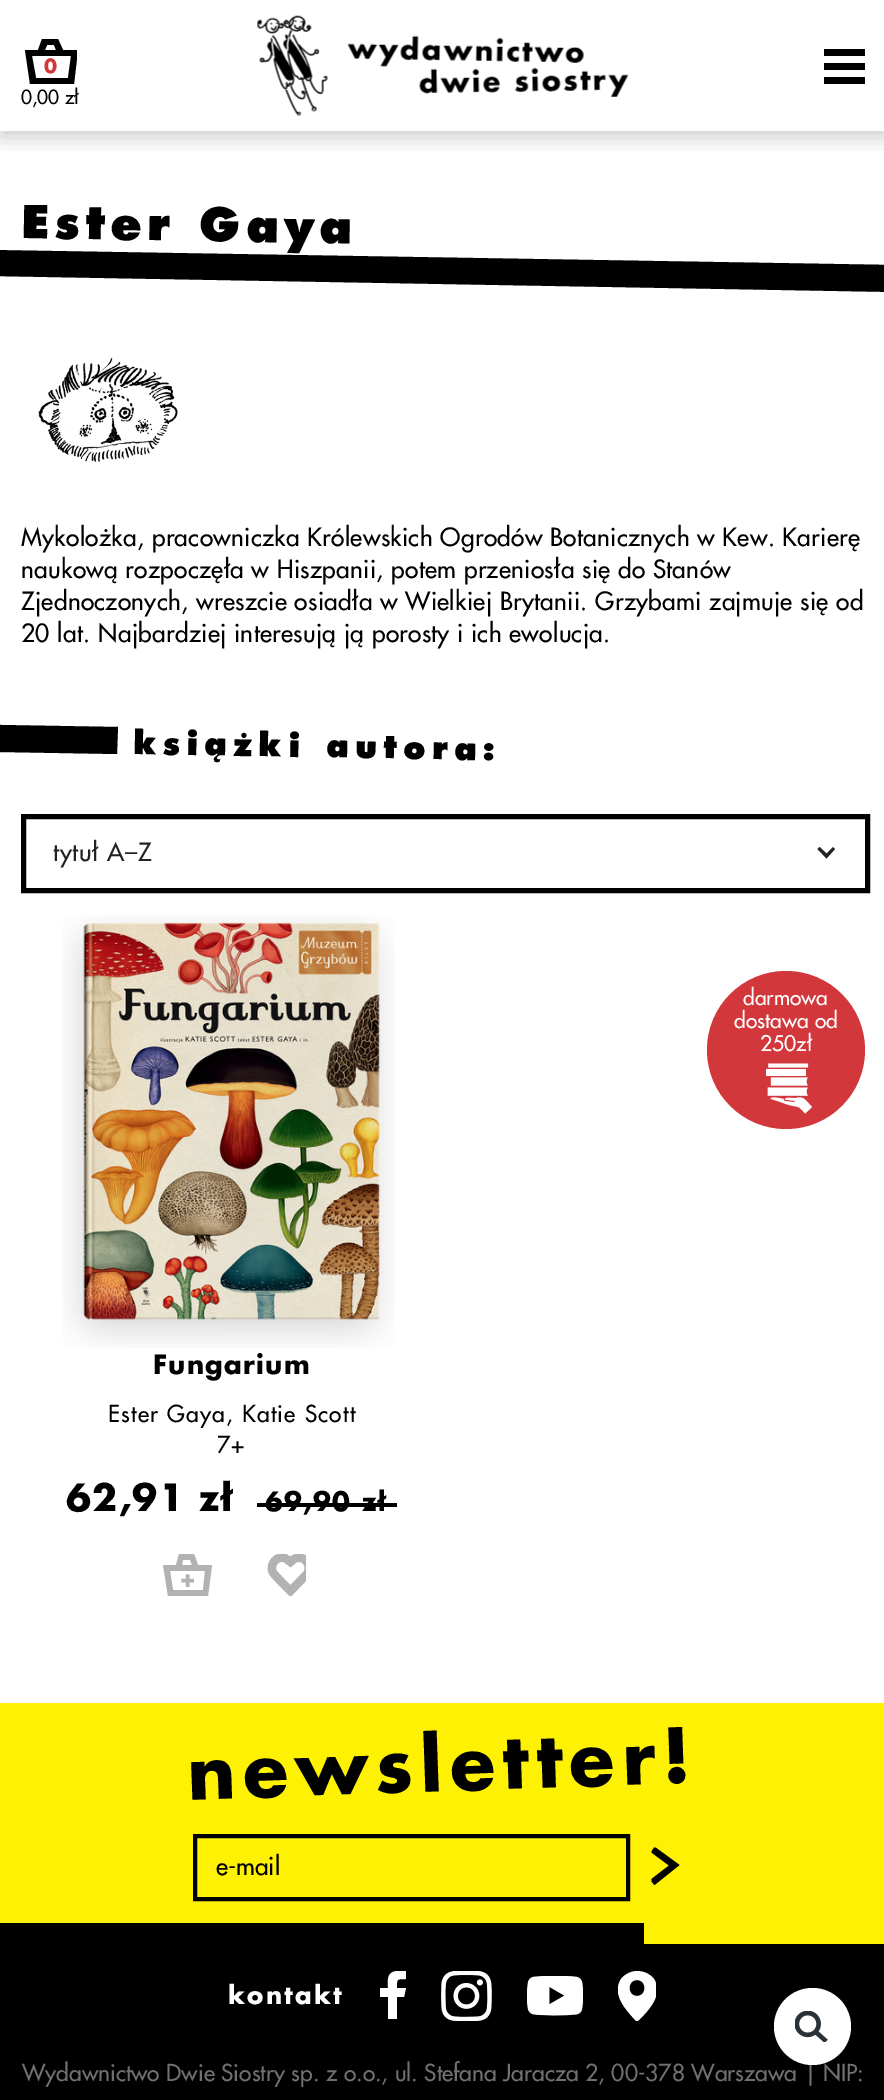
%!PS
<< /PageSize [884 2100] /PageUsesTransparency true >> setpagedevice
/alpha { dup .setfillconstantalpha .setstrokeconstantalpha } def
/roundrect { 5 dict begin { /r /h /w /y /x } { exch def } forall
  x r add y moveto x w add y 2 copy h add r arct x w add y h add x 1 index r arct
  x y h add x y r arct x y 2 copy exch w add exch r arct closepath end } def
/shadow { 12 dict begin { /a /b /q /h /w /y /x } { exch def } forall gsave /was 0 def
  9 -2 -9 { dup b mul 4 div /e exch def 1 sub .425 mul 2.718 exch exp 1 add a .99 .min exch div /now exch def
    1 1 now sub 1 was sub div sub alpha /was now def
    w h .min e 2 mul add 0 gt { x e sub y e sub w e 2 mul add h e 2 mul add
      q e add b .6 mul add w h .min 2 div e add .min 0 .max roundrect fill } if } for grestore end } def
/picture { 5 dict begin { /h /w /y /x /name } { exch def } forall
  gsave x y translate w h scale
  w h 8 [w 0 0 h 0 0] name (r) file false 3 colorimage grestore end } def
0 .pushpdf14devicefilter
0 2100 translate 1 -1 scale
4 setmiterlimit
1 setgray
0 0 884 2100 rectfill
gsave
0 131 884 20 rectclip
0 setgray
0 5 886 132 0 10.5 0.21 shadow
grestore
gsave
25 39 52 45 rectclip
0 setgray
newpath 63 50 moveto 58 39 lineto 42 39 lineto 38 50 lineto 25 50 lineto 30 84 lineto 74 84 lineto 78 50 lineto closepath 47 45 moveto 54 45 lineto 56 50 lineto 45 50 lineto closepath 68 78 moveto 36 78 lineto 32 56 lineto 71 56 lineto closepath fill
grestore
/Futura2-Bold [19 0 0 -19 0 0] selectfont
0.824 0.216 0.231 setrgbcolor
44 73 moveto (0) show
/Futura-Medium [19 0 0 -19 0 0] selectfont
0 setgray
21 104 moveto (0,00 zł) show
(img1.rgb) 257 15 372 101 picture
824 49 41 7 rectfill
824 63 41 7 rectfill
824 77 41 7 rectfill
gsave
0 205 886 91 rectclip
/Futura-Bold [45.5 0 0 -45.5 0 0] selectfont
gsave 21 238 translate 1 rotate 0 0 moveto 5.5 0 (Ester Gaya) ashow grestore
grestore
newpath -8 250 moveto 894 265 lineto 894 292 lineto -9 276 lineto closepath fill
(img2.rgb) 38 340 140 126 picture
/Futura-Medium [24.5 0 0 -24.5 0 0] selectfont
21 546 moveto 0.32 0 (Mykolożka, pracowniczka Królewskich Ogrodów Botanicznych w Kew. Karierę) ashow
21 578 moveto 0.32 0 (naukową rozpoczęła w Hiszpanii, potem przeniosła się do Stanów) ashow
21 610 moveto 0.32 0 (Zjednoczonych, wreszcie osiadła w Wielkiej Brytanii. Grzybami zajmuje się od) ashow
21 642 moveto 0.32 0 (20 lat. Najbardziej interesują ją porosty i ich ewolucja.) ashow
newpath -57 724 moveto 118 727 lineto 117 754 lineto -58 751 lineto closepath fill
/Futura-Bold [31.5 0 0 -31.5 0 0] selectfont
gsave 133 754 translate 1 rotate 0 0 moveto 6.25 0 (książki autora:) ashow grestore
5 setlinewidth
23.5 816.5 844 74 rectstroke
/Futura-Medium [24.5 0 0 -24.5 0 0] selectfont
0.133 setgray
53 861 moveto 0.75 0 (tytuł A–Z) ashow
newpath 833 847 moveto 826.5 853.5 lineto 819.5 847 lineto 817.5 849 lineto 826.5 858.5 lineto 835 849 lineto closepath fill
(img3.rgb) 62 915 333 433 picture
/Futura2-Bold [26 0 0 -26 0 0] selectfont
0 setgray
153 1374 moveto 1.25 0 (Fungarium) ashow
/Futura-Medium [22.75 0 0 -22.75 0 0] selectfont
108 1422 moveto 1.25 0 (Ester Gaya, Katie Scott) ashow
217 1453 moveto 1.25 0 (7+) ashow
/Futura2-Bold [36.5 0 0 -36.5 0 0] selectfont
66 1511 moveto 1.25 0 (62,91 zł) ashow
/Futura2-Bold [26 0 0 -26 0 0] selectfont
265 1511 moveto 1.25 0 (69,90 zł) ashow
257 1503 140 4 rectfill
0.698 setgray
newpath 198 1565 moveto 194 1554 lineto 179 1554 lineto 176 1565 lineto 163 1565 lineto 168 1596 lineto 208 1596 lineto 212 1565 lineto closepath 183 1560 moveto 190 1560 lineto 192 1565 lineto 182 1565 lineto closepath 203 1590 moveto 173 1590 lineto 170 1571 lineto 205 1571 lineto closepath fill
/Futura2-Bold [25 0 0 -25 0 0] selectfont
179 1587 moveto (+) show
gsave
263 1554 43 42 rectclip
8.3 setlinewidth
newpath 306 1560.5 moveto 302.5 1557.5 297 1556.5 293.5 1559.5 curveto 290.5 1562 lineto 288.5 1560.5 287 1559 284.5 1558 curveto 277 1555.5 269.5 1564 272.5 1571.5 curveto 274 1575 277.5 1577.5 280 1580.5 curveto 290.5 1591 lineto 306 1575 lineto 310 1571 310 1565 306 1561 curveto 306 1560.5 lineto stroke
grestore
0.824 0.216 0.231 setrgbcolor
newpath 786 1050 79 0 360 arc closepath fill
/Futura-Medium [21 0 0 -21 0 0] selectfont
1 setgray
743 1005 moveto (darmowa) show
734 1028 moveto (dostawa od) show
760 1051 moveto (250zł) show
(img4.rgb) 766 1063 47 51 picture
1 0.945 0.016 setrgbcolor
0 1703 884 241 rectfill
/Futura2-Bold [73.5 0 0 -73.5 0 0] selectfont
0 setgray
gsave 188 1800 translate -2 rotate 0 0 moveto 7.3 0 (newsletter!) ashow grestore
4 setlinewidth
195 1836 433 63 rectstroke
/Futura-Medium [24.5 0 0 -24.5 0 0] selectfont
216 1875 moveto (e-mail) show
newpath 651.5 1851.5 moveto 651.5 1852.5 lineto 669 1865.5 lineto 651.5 1879 lineto 651.5 1881.5 lineto 654.5 1885 lineto 679.5 1865 lineto 655.5 1847.5 lineto 654 1847.5 lineto closepath fill
0 1944 884 156 rectfill
0 1923 644 21 rectfill
/Futura2-Bold [24.5 0 0 -24.5 0 0] selectfont
1 setgray
228 2004 moveto 2.25 0 (kontakt) ashow
newpath 397 2019 moveto 397 1997 lineto 404 1997 lineto 406 1988 lineto 397 1988 lineto 397 1979 396 1979 406 1979 curveto 406 1971 lineto 397 1971 lineto 386 1972 388 1981 388 1988 curveto 380 1988 lineto 380 1997 lineto 388 1997 lineto 388 2019 lineto closepath eofill
(img5.rgb) 441 1971 51 50 picture
(img6.rgb) 527 1976 56 40 picture
gsave
618 1971 38 50 rectclip
newpath 637 1971 moveto 631 1971 625 1974 621 1979 curveto 611 1995 627 2011 637 2022 curveto 648 2011 664 1995 654 1979 curveto 650 1974 644 1971 637 1971 curveto closepath 637 1996 moveto 627 1996 627 1980 637 1980 curveto 647 1980 647 1996 637 1996 curveto closepath fill
grestore
/Futura-Medium [22.75 0 0 -22.75 0 0] selectfont
0.439 setgray
22 2081 moveto (Wydawnictwo Dwie Siostry sp. z o.o., ul. Stefana Jaracza 2, 00-378 Warszawa | NIP:) show
1 setgray
newpath 812.5 2026.5 38.5 0 360 arc closepath fill
(img7.rgb) 795 2011 33 31 picture
.poppdf14devicefilter showpage
